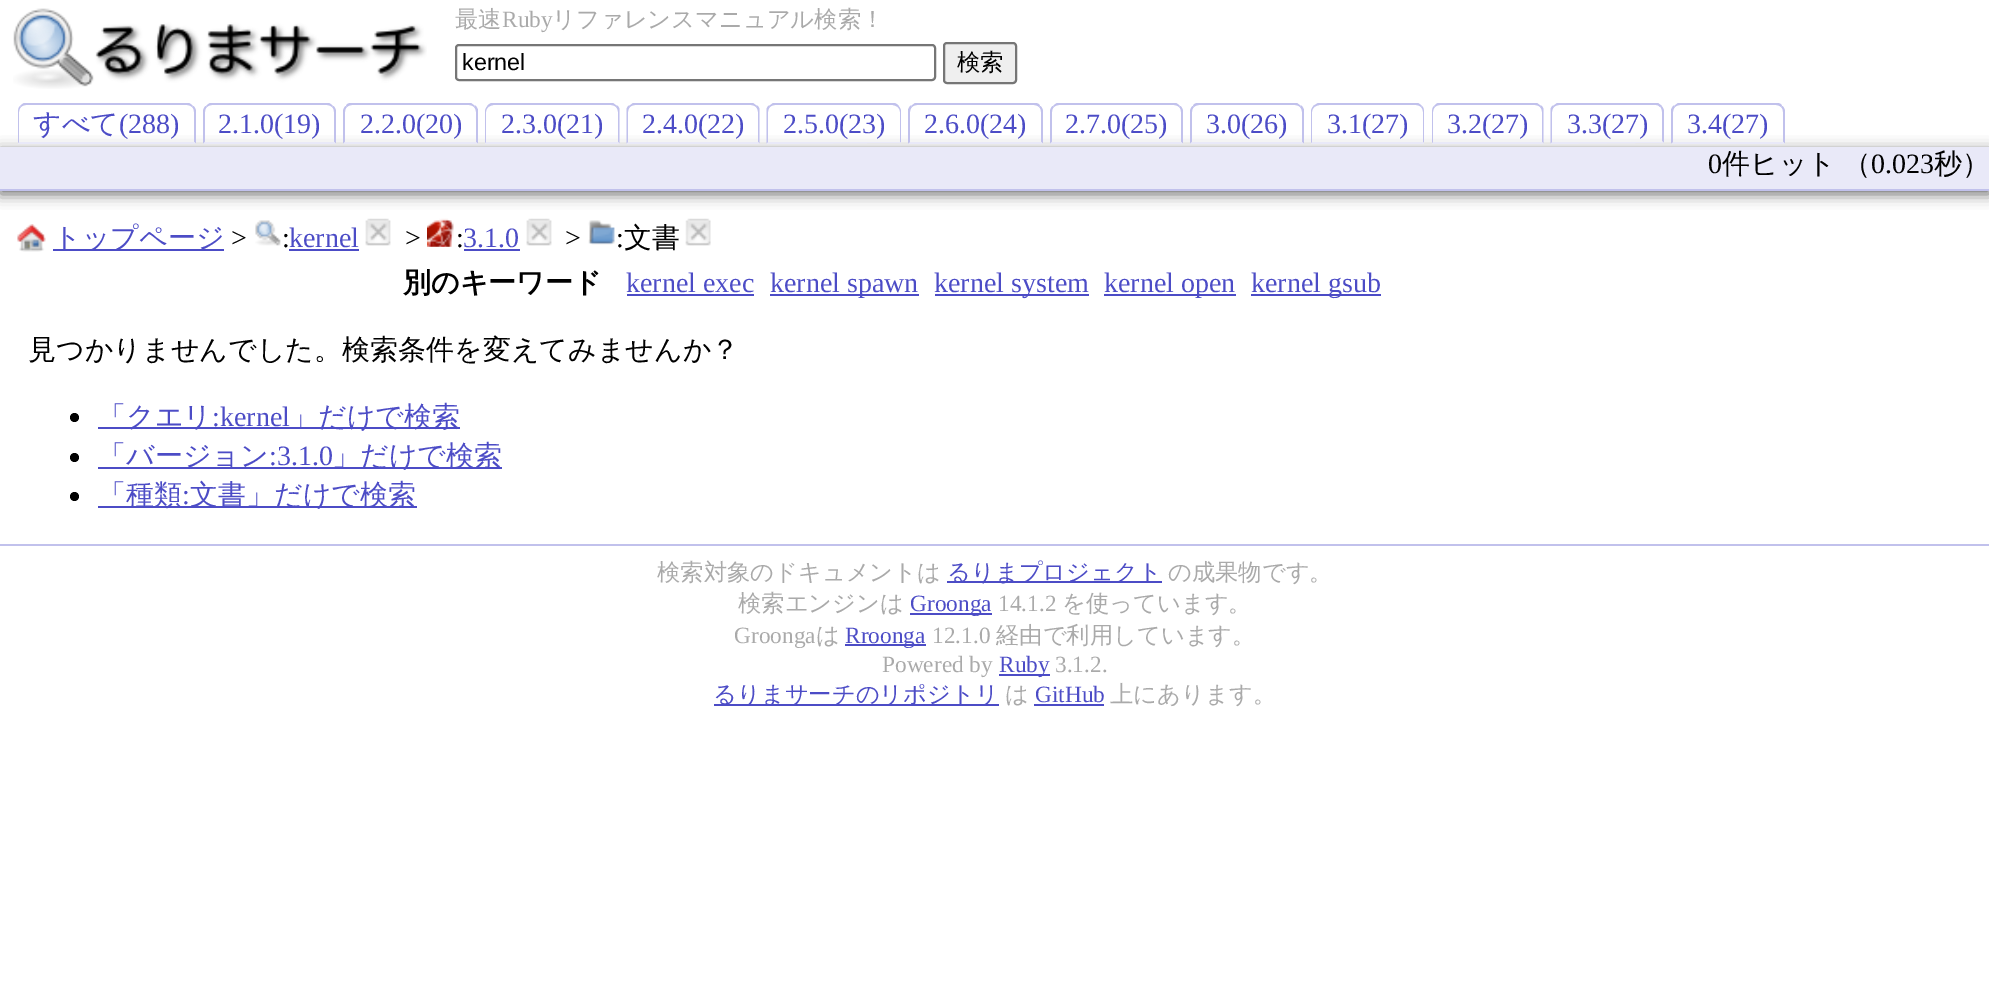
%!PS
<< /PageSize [1989 1004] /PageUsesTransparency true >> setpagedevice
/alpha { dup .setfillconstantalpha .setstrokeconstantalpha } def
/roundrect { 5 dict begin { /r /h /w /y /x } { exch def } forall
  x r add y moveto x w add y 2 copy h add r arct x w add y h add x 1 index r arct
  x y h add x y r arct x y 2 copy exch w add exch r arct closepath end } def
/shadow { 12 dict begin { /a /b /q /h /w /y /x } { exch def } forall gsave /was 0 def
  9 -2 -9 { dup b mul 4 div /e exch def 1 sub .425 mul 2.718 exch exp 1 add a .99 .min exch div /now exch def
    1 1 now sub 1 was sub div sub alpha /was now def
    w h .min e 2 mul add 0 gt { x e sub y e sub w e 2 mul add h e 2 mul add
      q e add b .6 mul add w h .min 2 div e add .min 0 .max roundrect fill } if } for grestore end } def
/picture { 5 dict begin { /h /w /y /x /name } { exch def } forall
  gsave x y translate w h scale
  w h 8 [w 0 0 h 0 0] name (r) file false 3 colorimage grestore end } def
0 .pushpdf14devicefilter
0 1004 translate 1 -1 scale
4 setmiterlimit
1 setgray
0 0 1989 1004 rectfill
(img1.rgb) 13 8 414 81 picture
/WenQuanYiZenHei-Medium [23.3 0 0 -23.3 0 0] selectfont
0.667 setgray
455 27 moveto (最速) show
/LiberationSerif-Regular [23.3 0 0 -23.3 0 0] selectfont
502 27 moveto (Ruby) show
/WenQuanYiZenHei-Medium [23.3 0 0 -23.3 0 0] selectfont
552 27 moveto (リファレンスマニュアル検索！) show
0.463 setgray
2 setlinewidth
456 45 479 35 3 roundrect stroke
/LiberationSans-Regular [23.3 0 0 -23.3 0 0] selectfont
0 setgray
462 70 moveto (kernel) show
0.937 setgray
944 43 72 40 3 roundrect gsave fill grestore
0.463 setgray
stroke
/WenQuanYiZenHei-Medium [23.3 0 0 -23.3 0 0] selectfont
0 setgray
957 70 moveto (検索) show
0.392 setgray
0 151 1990 43 0 7 1 shadow
/WenQuanYiZenHei-Medium [28 0 0 -28 0 0] selectfont
0.298 0.298 0.776 setrgbcolor
33 133 moveto (すべて) show
0.757 0.757 0.925 setrgbcolor
newpath 26 105 moveto 24 105 22 106 21 107 curveto 20 106 lineto 21 105 22 104 24 103 curveto 189 103 lineto 191 104 192 105 193 106 curveto 192 107 lineto 191 106 189 105 187 105 curveto closepath fill
newpath 196 143.5 moveto 196 112 lineto 196 109.5 195 107.5 193.5 106 curveto 192 107 lineto 193.5 108.5 194 110 194 112 curveto 194 141.5 lineto closepath fill
0.914 0.914 0.973 setrgbcolor
newpath 196 144 moveto 18 144 lineto 19 142 lineto 194 142 lineto closepath fill
0.757 0.757 0.925 setrgbcolor
newpath 18 143 moveto 18 112 lineto 18 109.5 18.5 107.5 20 106 curveto 21 107 lineto 20 108 19 110 19 112 curveto 19 142 lineto closepath fill
/LiberationSerif-Regular [28 0 0 -28 0 0] selectfont
0.298 0.298 0.776 setrgbcolor
119 133 moveto (\(288\)) show
218 133 moveto (2.1.0\(19\)) show
0.757 0.757 0.925 setrgbcolor
newpath 212 105 moveto 210 105 208 106 207 107 curveto 206 106 lineto 207 105 208 104 210 103 curveto 329 103 lineto 331 104 332 105 333 106 curveto 332 107 lineto 331 106 329 105 327 105 curveto closepath fill
newpath 336 143.5 moveto 336 112 lineto 336 109.5 335 107.5 333.5 106 curveto 332 107 lineto 333.5 108.5 334 110 334 112 curveto 334 141.5 lineto closepath fill
0.914 0.914 0.973 setrgbcolor
newpath 336 144 moveto 203 144 lineto 205 142 lineto 334 142 lineto closepath fill
0.757 0.757 0.925 setrgbcolor
newpath 203 143.5 moveto 205 141.5 lineto 205 112 lineto 205 110 205.5 108.5 207 107 curveto 205.5 106 lineto 204 107.5 203 109.5 203 112 curveto closepath fill
0.298 0.298 0.776 setrgbcolor
360 133 moveto (2.2.0\(20\)) show
0.757 0.757 0.925 setrgbcolor
newpath 352 105 moveto 350 105 348 106 347 107 curveto 346 106 lineto 346 105 348 103 350 103 curveto 471 103 lineto 475 106 lineto 474 107 lineto 473 106 471 105 469 105 curveto closepath fill
newpath 475.5 105.5 moveto 476.5 107 477.5 108 478 110 curveto 478 143.5 lineto 476 142 lineto 476 112 lineto 476 110 475 108 474 107 curveto closepath fill
0.914 0.914 0.973 setrgbcolor
newpath 478 144 moveto 476 142 lineto 345 142 lineto 343 144 lineto closepath fill
0.757 0.757 0.925 setrgbcolor
newpath 343 143.5 moveto 345 141.5 lineto 345 112 lineto 345 110 345.5 108.5 347 107 curveto 345.5 106 lineto 344 107.5 343 109.5 343 112 curveto closepath fill
0.298 0.298 0.776 setrgbcolor
501 133 moveto (2.3.0\(21\)) show
0.757 0.757 0.925 setrgbcolor
newpath 494 105 moveto 492 105 490 106 488 107 curveto 487 106 lineto 488 105 490 103 492 103 curveto 613 103 lineto 617 106 lineto 616 107 lineto 615 106 613 105 611 105 curveto closepath fill
newpath 617 105.5 moveto 618.5 106.5 619 107.5 619.5 109 curveto 619.5 143.5 lineto 618 142 lineto 618 112 lineto 618 110 617 108 616 107 curveto closepath fill
0.914 0.914 0.973 setrgbcolor
newpath 620 144 moveto 485 144 lineto 486 142 lineto 618 142 lineto closepath fill
0.757 0.757 0.925 setrgbcolor
newpath 485 143 moveto 485 112 lineto 485 109.5 486 107.5 487.5 106 curveto 488.5 107 lineto 487 108 486 110 486 112 curveto 486 142 lineto closepath fill
0.298 0.298 0.776 setrgbcolor
642 133 moveto (2.4.0\(22\)) show
0.757 0.757 0.925 setrgbcolor
newpath 635 105 moveto 633 105 631 106 630 107 curveto 629 106 lineto 633 103 lineto 753 103 lineto 757 106 lineto 756 107 lineto 755 106 753 105 751 105 curveto closepath fill
newpath 757 105.5 moveto 758.5 106.5 759 107.5 759.5 109 curveto 759.5 143.5 lineto 758 142 lineto 758 112 lineto 758 110 757 108 756 107 curveto closepath fill
0.914 0.914 0.973 setrgbcolor
newpath 760 144 moveto 758 142 lineto 628 142 lineto 626 144 lineto closepath fill
0.757 0.757 0.925 setrgbcolor
newpath 626.5 143.5 moveto 626.5 109 lineto 627 107.5 627.5 106.5 629 105.5 curveto 630 107 lineto 629 108 628 110 628 112 curveto 628 142 lineto closepath fill
0.298 0.298 0.776 setrgbcolor
783 133 moveto (2.5.0\(23\)) show
0.757 0.757 0.925 setrgbcolor
newpath 775 105 moveto 773 105 771 106 770 107 curveto 769 106 lineto 773 103 lineto 894 103 lineto 896 103 898 105 899 106 curveto 898 107 lineto 896 106 894 105 892 105 curveto closepath fill
newpath 898.5 106 moveto 900 107.5 901 109.5 901 112 curveto 901 143 lineto 900 142 lineto 900 112 lineto 900 110 899 108 897.5 107 curveto closepath fill
0.914 0.914 0.973 setrgbcolor
newpath 901 143 moveto 766 144 lineto 768 142 lineto 900 142 lineto closepath fill
0.757 0.757 0.925 setrgbcolor
newpath 766.5 143.5 moveto 766.5 109 lineto 767 107.5 767.5 106.5 769 105.5 curveto 770 107 lineto 769 108 768 110 768 112 curveto 768 142 lineto closepath fill
0.298 0.298 0.776 setrgbcolor
924 133 moveto (2.6.0\(24\)) show
0.757 0.757 0.925 setrgbcolor
newpath 917 105 moveto 915 105 913 106 912 107 curveto 911 106 lineto 915 103 lineto 1036 103 lineto 1038 103 1040 105 1040 106 curveto 1039 107 lineto 1038 106 1036 105 1034 105 curveto closepath fill
newpath 1043 143.5 moveto 1043 112 lineto 1043 109.5 1042 107.5 1040.5 106 curveto 1039 107 lineto 1040.5 108.5 1041 110 1041 112 curveto 1041 141.5 lineto closepath fill
0.914 0.914 0.973 setrgbcolor
newpath 1043 144 moveto 1041 142 lineto 910 142 lineto 908 144 lineto closepath fill
0.757 0.757 0.925 setrgbcolor
newpath 908 143.5 moveto 908 110 lineto 908.5 108 909.5 107 910.5 105.5 curveto 912 107 lineto 911 108 910 110 910 112 curveto 910 142 lineto closepath fill
0.298 0.298 0.776 setrgbcolor
1065 133 moveto (2.7.0\(25\)) show
0.757 0.757 0.925 setrgbcolor
newpath 1059 105 moveto 1057 105 1055 106 1054 107 curveto 1053 106 lineto 1054 105 1055 104 1057 103 curveto 1176 103 lineto 1178 104 1179 105 1180 106 curveto 1179 107 lineto 1178 106 1176 105 1174 105 curveto closepath fill
newpath 1183 143.5 moveto 1183 112 lineto 1183 109.5 1182 107.5 1180.5 106 curveto 1179 107 lineto 1180.5 108.5 1181 110 1181 112 curveto 1181 141.5 lineto closepath fill
0.914 0.914 0.973 setrgbcolor
newpath 1183 144 moveto 1050 144 lineto 1052 142 lineto 1181 142 lineto closepath fill
0.757 0.757 0.925 setrgbcolor
newpath 1050 143.5 moveto 1052 141.5 lineto 1052 112 lineto 1052 110 1052.5 108.5 1054 107 curveto 1052.5 106 lineto 1051 107.5 1050 109.5 1050 112 curveto closepath fill
0.298 0.298 0.776 setrgbcolor
1206 133 moveto (3.0\(26\)) show
0.757 0.757 0.925 setrgbcolor
newpath 1199 105 moveto 1197 105 1195 106 1194 107 curveto 1193 106 lineto 1193 105 1195 103 1197 103 curveto 1297 103 lineto 1301 106 lineto 1300 107 lineto 1299 106 1297 105 1295 105 curveto closepath fill
newpath 1301.5 105.5 moveto 1302.5 107 1303.5 108 1304 110 curveto 1304 143.5 lineto 1302 142 lineto 1302 112 lineto 1302 110 1301 108 1300 107 curveto closepath fill
0.914 0.914 0.973 setrgbcolor
newpath 1304 144 moveto 1302 142 lineto 1192 142 lineto 1190 144 lineto closepath fill
0.757 0.757 0.925 setrgbcolor
newpath 1190 143.5 moveto 1192 141.5 lineto 1192 112 lineto 1192 110 1192.5 108.5 1194 107 curveto 1192.5 106 lineto 1191 107.5 1190 109.5 1190 112 curveto closepath fill
0.298 0.298 0.776 setrgbcolor
1327 133 moveto (3.1\(27\)) show
0.757 0.757 0.925 setrgbcolor
newpath 1320 105 moveto 1318 105 1316 106 1314 107 curveto 1313 106 lineto 1315 105 1316 104 1318 103 curveto 1418 103 lineto 1420 104 1421 105 1422 106 curveto 1421 107 lineto 1420 106 1418 105 1416 105 curveto closepath fill
newpath 1422 106 moveto 1423.5 107.5 1424 109.5 1424 112 curveto 1424 143 lineto 1423 142 lineto 1423 112 lineto 1423 110 1422 108 1421 107 curveto closepath fill
0.914 0.914 0.973 setrgbcolor
newpath 1311 144 moveto 1312 142 lineto 1423 142 lineto 1424 143 lineto 1424 144 lineto closepath fill
0.757 0.757 0.925 setrgbcolor
newpath 1311 143 moveto 1311 112 lineto 1311 109.5 1312 107.5 1313.5 106 curveto 1314.5 107 lineto 1313 108 1312 110 1312 112 curveto 1312 142 lineto closepath fill
0.298 0.298 0.776 setrgbcolor
1447 133 moveto (3.2\(27\)) show
0.757 0.757 0.925 setrgbcolor
newpath 1440 105 moveto 1438 105 1436 106 1435 107 curveto 1434 106 lineto 1435 105 1437 103 1438 103 curveto 1537 103 lineto 1541 106 lineto 1540 107 lineto 1539 106 1537 105 1535 105 curveto closepath fill
newpath 1541 105.5 moveto 1542.5 106.5 1543 107.5 1543.5 109 curveto 1543.5 143.5 lineto 1542 142 lineto 1542 112 lineto 1542 110 1541 108 1540 107 curveto closepath fill
0.914 0.914 0.973 setrgbcolor
newpath 1544 144 moveto 1432 144 lineto 1433 142 lineto 1542 142 lineto closepath fill
0.757 0.757 0.925 setrgbcolor
newpath 1432 143 moveto 1432 112 lineto 1432 109.5 1432.5 107.5 1434 106 curveto 1435 107 lineto 1434 108 1433 110 1433 112 curveto 1433 142 lineto closepath fill
0.298 0.298 0.776 setrgbcolor
1567 133 moveto (3.3\(27\)) show
0.757 0.757 0.925 setrgbcolor
newpath 1559 105 moveto 1557 105 1555 106 1554 107 curveto 1553 106 lineto 1557 103 lineto 1658 103 lineto 1662 106 lineto 1660 107 lineto 1659 106 1658 105 1656 105 curveto closepath fill
newpath 1661.5 106 moveto 1663 107.5 1664 109.5 1664 112 curveto 1664 143 lineto 1662 141 lineto 1662 112 lineto 1662 110 1661.5 108.5 1660.5 107 curveto closepath fill
0.914 0.914 0.973 setrgbcolor
newpath 1664 143 moveto 1550 144 lineto 1552 142 lineto 1662 142 lineto 1662 141 lineto closepath fill
0.757 0.757 0.925 setrgbcolor
newpath 1550.5 143.5 moveto 1550.5 109 lineto 1551 107.5 1551.5 106.5 1553 105.5 curveto 1554 107 lineto 1553 108 1552 110 1552 112 curveto 1552 142 lineto closepath fill
0.298 0.298 0.776 setrgbcolor
1687 133 moveto (3.4\(27\)) show
0.757 0.757 0.925 setrgbcolor
newpath 1680 105 moveto 1678 105 1676 106 1675 107 curveto 1674 106 lineto 1678 103 lineto 1778 103 lineto 1780 103 1782 105 1782 106 curveto 1781 107 lineto 1780 106 1778 105 1776 105 curveto closepath fill
newpath 1785 143.5 moveto 1785 112 lineto 1785 109.5 1784 107.5 1782.5 106 curveto 1781 107 lineto 1782.5 108.5 1783 110 1783 112 curveto 1783 141.5 lineto closepath fill
0.914 0.914 0.973 setrgbcolor
newpath 1785 144 moveto 1783 142 lineto 1673 142 lineto 1671 144 lineto closepath fill
0.757 0.757 0.925 setrgbcolor
newpath 1671 143.5 moveto 1671 110 lineto 1671.5 108 1672.5 107 1673.5 105.5 curveto 1675 107 lineto 1674 108 1673 110 1673 112 curveto 1673 142 lineto closepath fill
0.914 0.914 0.973 setrgbcolor
0 147 1989 42 rectfill
0.757 0.757 0.925 setrgbcolor
0 189 1989 2 rectfill
0 setgray
1708 173 moveto (0) show
/WenQuanYiZenHei-Medium [28 0 0 -28 0 0] selectfont
1722 173 moveto (件ヒット) show
1843 173 moveto (（) show
/LiberationSerif-Regular [28 0 0 -28 0 0] selectfont
1871 173 moveto (0.023) show
/WenQuanYiZenHei-Medium [28 0 0 -28 0 0] selectfont
1934 173 moveto (秒）) show
(img2.rgb) 17 224 29 28 picture
0.298 0.298 0.776 setrgbcolor
53 249 171 2 rectfill
53 247 moveto (トップページ) show
/LiberationSerif-Regular [28 0 0 -28 0 0] selectfont
0 setgray
231 247 moveto (>) show
(img3.rgb) 255 220 26 26 picture
282 247 moveto (:) show
0.298 0.298 0.776 setrgbcolor
289 249 70 2 rectfill
289 247 moveto (kernel) show
(img4.rgb) 365 218 26 28 picture
0 setgray
405 247 moveto (>) show
(img5.rgb) 427 218 27 29 picture
456 247 moveto (:) show
0.298 0.298 0.776 setrgbcolor
464 249 56 2 rectfill
463 247 moveto (3.1.0) show
(img6.rgb) 526 218 26 28 picture
0 setgray
565 247 moveto (>) show
(img7.rgb) 588 220 27 25 picture
616 247 moveto (:) show
/WenQuanYiZenHei-Medium [28 0 0 -28 0 0] selectfont
624 247 moveto (文書) show
(img8.rgb) 685 218 26 28 picture
/WenQuanYiZenHei-Bold [28 0 0 -28 0 0] selectfont
403 292 moveto (別のキーワード) show
/LiberationSerif-Regular [28 0 0 -28 0 0] selectfont
0.298 0.298 0.776 setrgbcolor
626 292 moveto (kernel exec) show
627 294 127 2 rectfill
770 294 149 2 rectfill
770 292 moveto (kernel spawn) show
935 294 154 2 rectfill
934 292 moveto (kernel system) show
1104 294 132 2 rectfill
1104 292 moveto (kernel open) show
1251 294 130 2 rectfill
1251 292 moveto (kernel gsub) show
/WenQuanYiZenHei-Medium [28 0 0 -28 0 0] selectfont
0 setgray
28 359 moveto (見つかりませんでした。検索条件を変えてみませんか？) show
newpath 74.5 417.5 4.5 0 360 arc closepath fill
0.298 0.298 0.776 setrgbcolor
98 427 362 2 rectfill
98 426 moveto (「クエリ) show
/LiberationSerif-Regular [28 0 0 -28 0 0] selectfont
212 426 moveto (:kernel) show
/WenQuanYiZenHei-Medium [28 0 0 -28 0 0] selectfont
290 426 moveto (」だけで検索) show
0 setgray
newpath 74.5 457.5 4.5 0 360 arc closepath fill
0.298 0.298 0.776 setrgbcolor
98 467 404 2 rectfill
98 465 moveto (「バージョン) show
/LiberationSerif-Regular [28 0 0 -28 0 0] selectfont
269 465 moveto (:3.1.0) show
/WenQuanYiZenHei-Medium [28 0 0 -28 0 0] selectfont
332 465 moveto (」だけで検索) show
0 setgray
newpath 74.5 496.5 4.5 0 360 arc closepath fill
0.298 0.298 0.776 setrgbcolor
98 506 319 2 rectfill
98 504 moveto (「種類) show
/LiberationSerif-Regular [28 0 0 -28 0 0] selectfont
182 504 moveto (:) show
/WenQuanYiZenHei-Medium [28 0 0 -28 0 0] selectfont
190 504 moveto (文書」だけで検索) show
0.757 0.757 0.925 setrgbcolor
0 544 1989 2 rectfill
/WenQuanYiZenHei-Medium [23.3 0 0 -23.3 0 0] selectfont
0.667 setgray
657 580 moveto (検索対象のドキュメントは) show
0.298 0.298 0.776 setrgbcolor
947 581 215 2 rectfill
947 580 moveto (るりまプロジェクト) show
0.667 setgray
1168 580 moveto (の成果物です。) show
738 611 moveto (検索エンジンは) show
0.298 0.298 0.776 setrgbcolor
910 613 82 2 rectfill
/LiberationSerif-Regular [23.3 0 0 -23.3 0 0] selectfont
910 611 moveto (Groonga) show
0.667 setgray
998 611 moveto (14.1.2) show
/WenQuanYiZenHei-Medium [23.3 0 0 -23.3 0 0] selectfont
1062 611 moveto (を使っています。) show
/LiberationSerif-Regular [23.3 0 0 -23.3 0 0] selectfont
734 643 moveto (Groonga) show
/WenQuanYiZenHei-Medium [23.3 0 0 -23.3 0 0] selectfont
816 643 moveto (は) show
0.298 0.298 0.776 setrgbcolor
845 644 81 2 rectfill
/LiberationSerif-Regular [23.3 0 0 -23.3 0 0] selectfont
845 643 moveto (Rroonga) show
0.667 setgray
932 643 moveto (12.1.0) show
/WenQuanYiZenHei-Medium [23.3 0 0 -23.3 0 0] selectfont
996 643 moveto (経由で利用しています。) show
/LiberationSerif-Regular [23.3 0 0 -23.3 0 0] selectfont
882 672 moveto (Powered by) show
0.298 0.298 0.776 setrgbcolor
999 674 51 2 rectfill
999 672 moveto (Ruby) show
0.667 setgray
1055 672 moveto (3.1.2.) show
0.298 0.298 0.776 setrgbcolor
714 704 285 2 rectfill
/WenQuanYiZenHei-Medium [23.3 0 0 -23.3 0 0] selectfont
713 702 moveto (るりまサーチのリポジトリ) show
0.667 setgray
1005 702 moveto (は) show
/LiberationSerif-Regular [23.3 0 0 -23.3 0 0] selectfont
0.298 0.298 0.776 setrgbcolor
1035 702 moveto (GitHub) show
1034 704 70 2 rectfill
/WenQuanYiZenHei-Medium [23.3 0 0 -23.3 0 0] selectfont
0.667 setgray
1110 702 moveto (上にあります。) show
.poppdf14devicefilter showpage
